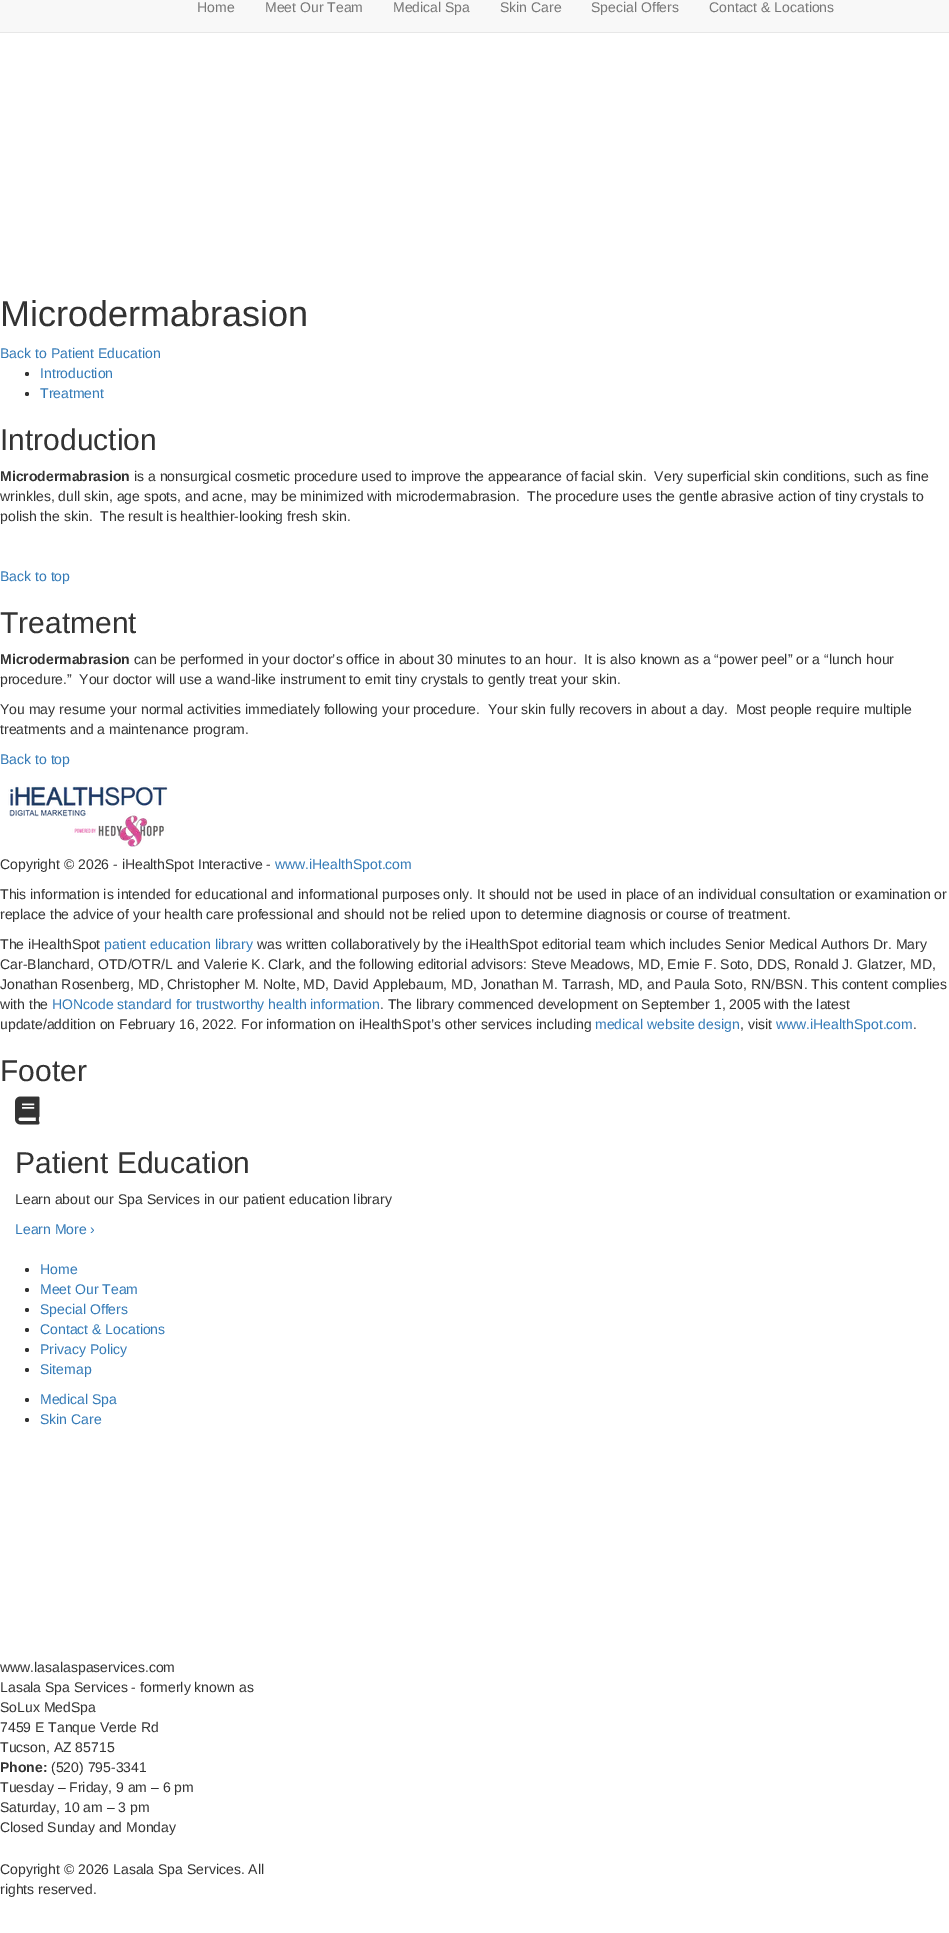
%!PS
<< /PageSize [949 1933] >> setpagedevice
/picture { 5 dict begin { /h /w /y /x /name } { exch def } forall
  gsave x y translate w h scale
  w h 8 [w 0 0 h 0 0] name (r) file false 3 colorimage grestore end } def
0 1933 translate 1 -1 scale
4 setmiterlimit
1 setgray
0 0 949 1933 rectfill
0.973 setgray
0 0 949 32 rectfill
0.906 setgray
0 32 949 1 rectfill
/LiberationSans-Regular [14 0 0 -14 0 0] selectfont
0.467 setgray
197 12 moveto (Home) show
265 12 moveto (Meet Our Team) show
393 12 moveto (Medical Spa) show
500 12 moveto (Skin Care) show
591 12 moveto (Special Offers) show
709 12 moveto (Contact & Locations) show
/LiberationSans-Regular [36 0 0 -36 0 0] selectfont
0.2 setgray
0 326 moveto (Microdermabrasion) show
/LiberationSans-Regular [14 0 0 -14 0 0] selectfont
0.2 0.478 0.718 setrgbcolor
0 358 moveto (Back to Patient Education) show
0.2 setgray
newpath 27 374 2 0 360 arc closepath fill
0.2 0.478 0.718 setrgbcolor
40 378 moveto (Introduction) show
0.2 setgray
newpath 27 394 2 0 360 arc closepath fill
0.2 0.478 0.718 setrgbcolor
40 398 moveto (Treatment) show
/LiberationSans-Regular [30 0 0 -30 0 0] selectfont
0.2 setgray
0 450 moveto (Introduction) show
/LiberationSans-Bold [14 0 0 -14 0 0] selectfont
0 481 moveto (Microdermabrasion) show
/LiberationSans-Regular [14 0 0 -14 0 0] selectfont
134 481 moveto (is a nonsurgical cosmetic procedure used to improve the appearance of facial skin.  Very superficial skin conditions, such as fine) show
0 501 moveto (wrinkles, dull skin, age spots, and acne, may be minimized with microdermabrasion.  The procedure uses the gentle abrasive action of tiny crystals to) show
0 521 moveto (polish the skin.  The result is healthier-looking fresh skin.) show
0.2 0.478 0.718 setrgbcolor
0 581 moveto (Back to top) show
/LiberationSans-Regular [30 0 0 -30 0 0] selectfont
0.2 setgray
0 633 moveto (Treatment) show
/LiberationSans-Bold [14 0 0 -14 0 0] selectfont
0 664 moveto (Microdermabrasion) show
/LiberationSans-Regular [14 0 0 -14 0 0] selectfont
134 664 moveto (can be performed in your doctor’s office in about 30 minutes to an hour.  It is also known as a “power peel” or a “lunch hour) show
0 684 moveto (procedure.”  Your doctor will use a wand-like instrument to emit tiny crystals to gently treat your skin.) show
0 714 moveto (You may resume your normal activities immediately following your procedure.  Your skin fully recovers in about a day.  Most people require multiple) show
0 734 moveto (treatments and a maintenance program.) show
0.2 0.478 0.718 setrgbcolor
0 764 moveto (Back to top) show
(img1.rgb) 8 785 160 62 picture
0.2 setgray
0 869 moveto (Copyright © 2026 - iHealthSpot Interactive -) show
0.2 0.478 0.718 setrgbcolor
275 869 moveto (www.iHealthSpot.com) show
0.2 setgray
0 899 moveto (This information is intended for educational and informational purposes only. It should not be used in place of an individual consultation or examination or) show
0 919 moveto (replace the advice of your health care professional and should not be relied upon to determine diagnosis or course of treatment.) show
0 949 moveto (The iHealthSpot) show
0.2 0.478 0.718 setrgbcolor
104 949 moveto (patient education library) show
0.2 setgray
257 949 moveto (was written collaboratively by the iHealthSpot editorial team which includes Senior Medical Authors Dr. Mary) show
0 969 moveto (Car-Blanchard, OTD/OTR/L and Valerie K. Clark, and the following editorial advisors: Steve Meadows, MD, Ernie F. Soto, DDS, Ronald J. Glatzer, MD,) show
0 989 moveto (Jonathan Rosenberg, MD, Christopher M. Nolte, MD, David Applebaum, MD, Jonathan M. Tarrash, MD, and Paula Soto, RN/BSN. This content complies) show
0 1009 moveto (with the) show
0.2 0.478 0.718 setrgbcolor
52 1009 moveto (HONcode standard for trustworthy health information) show
0.2 setgray
380 1009 moveto (. The library commenced development on September 1, 2005 with the latest) show
0 1029 moveto (update/addition on February 16, 2022. For information on iHealthSpot’s other services including) show
0.2 0.478 0.718 setrgbcolor
595 1029 moveto (medical website design) show
0.2 setgray
740 1029 moveto (, visit) show
0.2 0.478 0.718 setrgbcolor
776 1029 moveto (www.iHealthSpot.com) show
0.2 setgray
913 1029 moveto (.) show
/LiberationSans-Regular [30 0 0 -30 0 0] selectfont
0 1081 moveto (Footer) show
(img2.rgb) 15 1096 25 29 picture
15 1173 moveto (Patient Education) show
/LiberationSans-Regular [14 0 0 -14 0 0] selectfont
15 1204 moveto (Learn about our Spa Services in our patient education library) show
0.2 0.478 0.718 setrgbcolor
15 1234 moveto (Learn More ›) show
0.2 setgray
newpath 27 1270 2 0 360 arc closepath fill
0.2 0.478 0.718 setrgbcolor
40 1274 moveto (Home) show
0.2 setgray
newpath 27 1290 2 0 360 arc closepath fill
0.2 0.478 0.718 setrgbcolor
40 1294 moveto (Meet Our Team) show
0.2 setgray
newpath 27 1310 2 0 360 arc closepath fill
0.2 0.478 0.718 setrgbcolor
40 1314 moveto (Special Offers) show
0.2 setgray
newpath 27 1330 2 0 360 arc closepath fill
0.2 0.478 0.718 setrgbcolor
40 1334 moveto (Contact & Locations) show
0.2 setgray
newpath 27 1350 2 0 360 arc closepath fill
0.2 0.478 0.718 setrgbcolor
40 1354 moveto (Privacy Policy) show
0.2 setgray
newpath 27 1370 2 0 360 arc closepath fill
0.2 0.478 0.718 setrgbcolor
40 1374 moveto (Sitemap) show
0.2 setgray
newpath 27 1400 2 0 360 arc closepath fill
0.2 0.478 0.718 setrgbcolor
40 1404 moveto (Medical Spa) show
0.2 setgray
newpath 27 1420 2 0 360 arc closepath fill
0.2 0.478 0.718 setrgbcolor
40 1424 moveto (Skin Care) show
0.2 setgray
0 1672 moveto (www.lasalaspaservices.com) show
0 1692 moveto (Lasala Spa Services - formerly known as) show
0 1712 moveto (SoLux MedSpa) show
0 1732 moveto (7459 E Tanque Verde Rd) show
0 1752 moveto (Tucson, AZ 85715) show
/LiberationSans-Bold [14 0 0 -14 0 0] selectfont
0 1772 moveto (Phone:) show
/LiberationSans-Regular [14 0 0 -14 0 0] selectfont
51 1772 moveto (\(520\) 795-3341) show
0 1792 moveto (Tuesday – Friday, 9 am – 6 pm) show
0 1812 moveto (Saturday, 10 am – 3 pm) show
0 1832 moveto (Closed Sunday and Monday) show
0 1874 moveto (Copyright © 2026 Lasala Spa Services. All) show
0 1894 moveto (rights reserved.) show
showpage
